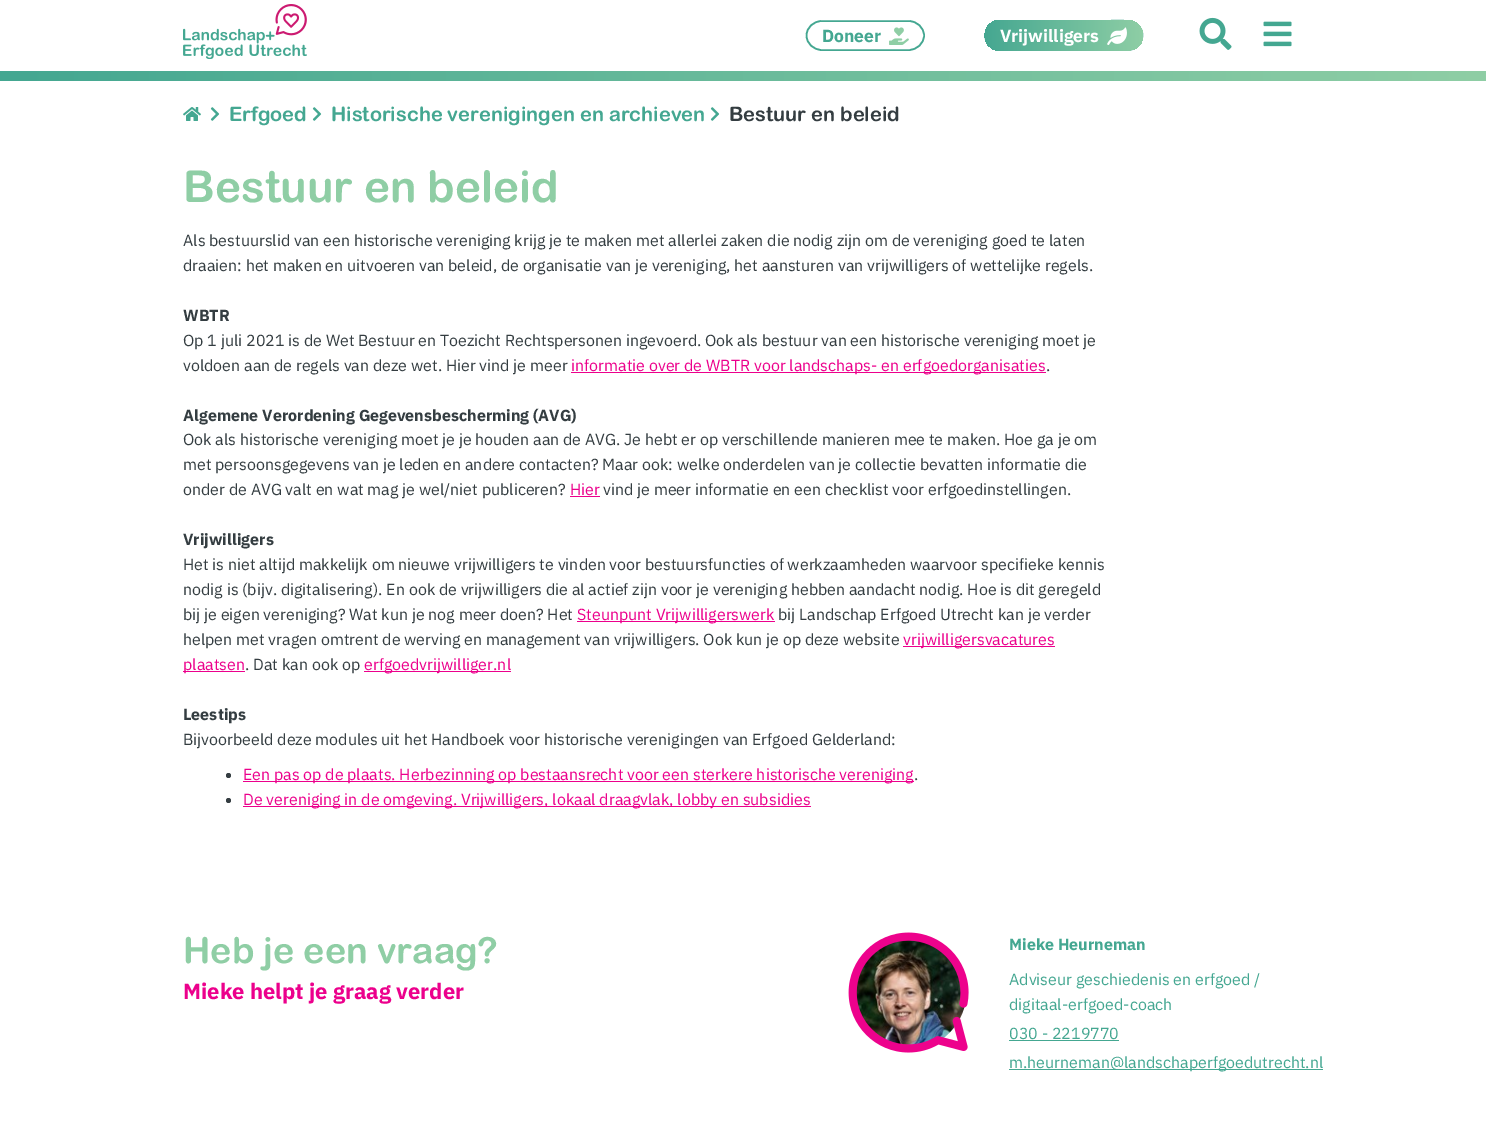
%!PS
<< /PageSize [1486 1139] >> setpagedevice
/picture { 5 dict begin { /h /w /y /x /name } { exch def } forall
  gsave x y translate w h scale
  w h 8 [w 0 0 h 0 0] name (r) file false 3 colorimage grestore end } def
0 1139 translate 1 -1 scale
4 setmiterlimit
1 setgray
0 0 1486 1139 rectfill
(img1.rgb) 183 4 124 55 picture
0.267 0.655 0.569 setrgbcolor
1.6 setlinewidth
newpath 822 21 moveto 908.5 21 lineto 917 21 924 27.5 924 35.5 curveto 924 43.5 917 50 908.5 50 curveto 822 50 lineto 813.5 50 806.5 43.5 806.5 35.5 curveto 806.5 27.5 813.5 21 822 21 curveto closepath stroke
/IBMPlexSans-Bold [17.5 0 0 -17.5 0 0] selectfont
822 42 moveto (Doneer) show
(img2.rgb) 889 27 20 18 picture
newpath 1000.5 21 moveto 1106 21 lineto 1109.5 21 1126 19.5 1133.5 22.5 curveto 1148.5 28.5 1143.5 50 1127.5 50 curveto 997.5 49.5 lineto 979.5 46.5 982.5 21 1000.5 21 curveto closepath stroke
gsave newpath 1000 20 moveto 980 20 979 50 1000 51 curveto 1131 50 lineto 1149 47 1146 20 1127 20 curveto closepath clip newpath
<< /ShadingType 2 /ColorSpace /DeviceRGB /Coords [983 36 1145 36] /Extend [true true] /Function << /FunctionType 2 /Domain [0 1] /C0 [0.267 0.655 0.569] /C1 [0.561 0.808 0.647] /N 1 >> >> shfill grestore
1 setgray
1000 42 moveto (Vrijwilligers) show
(img3.rgb) 1107 27 20 18 picture
(img4.rgb) 1199 17 33 33 picture
(img5.rgb) 1263 21 29 26 picture
gsave newpath 0 71 moveto 1486 71 lineto 1486 81 lineto 0 81 lineto closepath clip newpath
<< /ShadingType 2 /ColorSpace /DeviceRGB /Coords [0 76 1486 76] /Extend [true true] /Function << /FunctionType 2 /Domain [0 1] /C0 [0.267 0.655 0.569] /C1 [0.561 0.808 0.647] /N 1 >> >> shfill grestore
(img6.rgb) 183 107 18 14 picture
(img7.rgb) 210 107 10 14 picture
/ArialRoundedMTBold-Bold [20 0 0 -20 0 0] selectfont
0.267 0.655 0.569 setrgbcolor
229 121 moveto (Erfgoed) show
(img7.rgb) 312 107 10 14 picture
331 121 moveto (Historische verenigingen en archieven) show
(img7.rgb) 710 107 10 14 picture
0.204 0.239 0.255 setrgbcolor
729 121 moveto (Bestuur en beleid) show
/ArialRoundedMTBold-Bold [44 0 0 -44 0 0] selectfont
0.561 0.808 0.647 setrgbcolor
183 202 moveto (Bestuur en beleid) show
/IBMPlexSans-Regular [16 0 0 -16 0 0] selectfont
0.204 0.239 0.255 setrgbcolor
183 246 moveto (Als bestuurslid van een historische vereniging krijg je te maken met allerlei zaken die nodig zijn om de vereniging goed te laten) show
183 271 moveto (draaien: het maken en uitvoeren van beleid, de organisatie van je vereniging, het aansturen van vrijwilligers of wettelijke regels.) show
/IBMPlexSans-Bold [16 0 0 -16 0 0] selectfont
183 321 moveto (WBTR) show
/IBMPlexSans-Regular [16 0 0 -16 0 0] selectfont
183 346 moveto (Op 1 juli 2021 is de Wet Bestuur en Toezicht Rechtspersonen ingevoerd. Ook als bestuur van een historische vereniging moet je) show
183 371 moveto (voldoen aan de regels van deze wet. Hier vind je meer) show
0.925 0 0.549 setrgbcolor
571 372 475 1 rectfill
571 371 moveto (informatie over de WBTR voor landschaps- en erfgoedorganisaties) show
0.204 0.239 0.255 setrgbcolor
1046 371 moveto (.) show
/IBMPlexSans-Bold [16 0 0 -16 0 0] selectfont
183 421 moveto (Algemene Verordening Gegevensbescherming \(AVG\)) show
/IBMPlexSans-Regular [16 0 0 -16 0 0] selectfont
183 445 moveto (Ook als historische vereniging moet je je houden aan de AVG. Je hebt er op verschillende manieren mee te maken. Hoe ga je om) show
183 470 moveto (met persoonsgegevens van je leden en andere contacten? Maar ook: welke onderdelen van je collectie bevatten informatie die) show
183 495 moveto (onder de AVG valt en wat mag je wel/niet publiceren?) show
0.925 0 0.549 setrgbcolor
570 495 moveto (Hier) show
570 496 30 1 rectfill
0.204 0.239 0.255 setrgbcolor
603 495 moveto (vind je meer informatie en een checklist voor erfgoedinstellingen.) show
/IBMPlexSans-Bold [16 0 0 -16 0 0] selectfont
183 545 moveto (Vrijwilligers) show
/IBMPlexSans-Regular [16 0 0 -16 0 0] selectfont
183 570 moveto (Het is niet altijd makkelijk om nieuwe vrijwilligers te vinden voor bestuursfuncties of werkzaamheden waarvoor specifieke kennis) show
183 595 moveto (nodig is \(bijv. digitalisering\). En ook de vrijwilligers die al actief zijn voor je vereniging hebben aandacht nodig. Hoe is dit geregeld) show
183 620 moveto (bij je eigen vereniging? Wat kun je nog meer doen? Het) show
0.925 0 0.549 setrgbcolor
577 621 198 1 rectfill
577 620 moveto (Steunpunt Vrijwilligerswerk) show
0.204 0.239 0.255 setrgbcolor
778 620 moveto (bij Landschap Erfgoed Utrecht kan je verder) show
183 645 moveto (helpen met vragen omtrent de werving en management van vrijwilligers. Ook kun je op deze website) show
0.925 0 0.549 setrgbcolor
903 646 152 1 rectfill
903 645 moveto (vrijwilligersvacatures) show
183 671 62 1 rectfill
183 670 moveto (plaatsen) show
0.204 0.239 0.255 setrgbcolor
245 670 moveto (. Dat kan ook op) show
0.925 0 0.549 setrgbcolor
364 671 147 1 rectfill
364 670 moveto (erfgoedvrijwilliger.nl) show
/IBMPlexSans-Bold [16 0 0 -16 0 0] selectfont
0.204 0.239 0.255 setrgbcolor
183 720 moveto (Leestips) show
/IBMPlexSans-Regular [16 0 0 -16 0 0] selectfont
183 745 moveto (Bijvoorbeeld deze modules uit het Handboek voor historische verenigingen van Erfgoed Gelderland:) show
newpath 228.5 775.5 2.5 0 360 arc closepath fill
0.925 0 0.549 setrgbcolor
243 781 671 1 rectfill
243 780 moveto (Een pas op de plaats. Herbezinning op bestaansrecht voor een sterkere historische vereniging) show
0.204 0.239 0.255 setrgbcolor
914 780 moveto (.) show
newpath 228.5 800.5 2.5 0 360 arc closepath fill
0.925 0 0.549 setrgbcolor
243 806 568 1 rectfill
243 805 moveto (De vereniging in de omgeving. Vrijwilligers, lokaal draagvlak, lobby en subsidies) show
/ArialRoundedMTBold-Bold [36 0 0 -36 0 0] selectfont
0.561 0.808 0.647 setrgbcolor
183 963 moveto (Heb je een vraag?) show
/IBMPlexSans-Bold [22 0 0 -22 0 0] selectfont
0.925 0 0.549 setrgbcolor
183 999 moveto (Mieke helpt je graag verder) show
(img9.rgb) 856 940 109 105 picture
(img8.rgb) 848 932 121 121 picture
/IBMPlexSans-Bold [16 0 0 -16 0 0] selectfont
0.267 0.655 0.569 setrgbcolor
1009 950 moveto (Mieke Heurneman) show
/IBMPlexSans-Regular [16 0 0 -16 0 0] selectfont
1009 985 moveto (Adviseur geschiedenis en erfgoed /) show
1009 1010 moveto (digitaal-erfgoed-coach) show
1009 1039 moveto (030 - 2219770) show
1009 1040 110 1 rectfill
1009 1069 314 1 rectfill
1009 1068 moveto (m.heurneman@landschaperfgoedutrecht.nl) show
showpage
